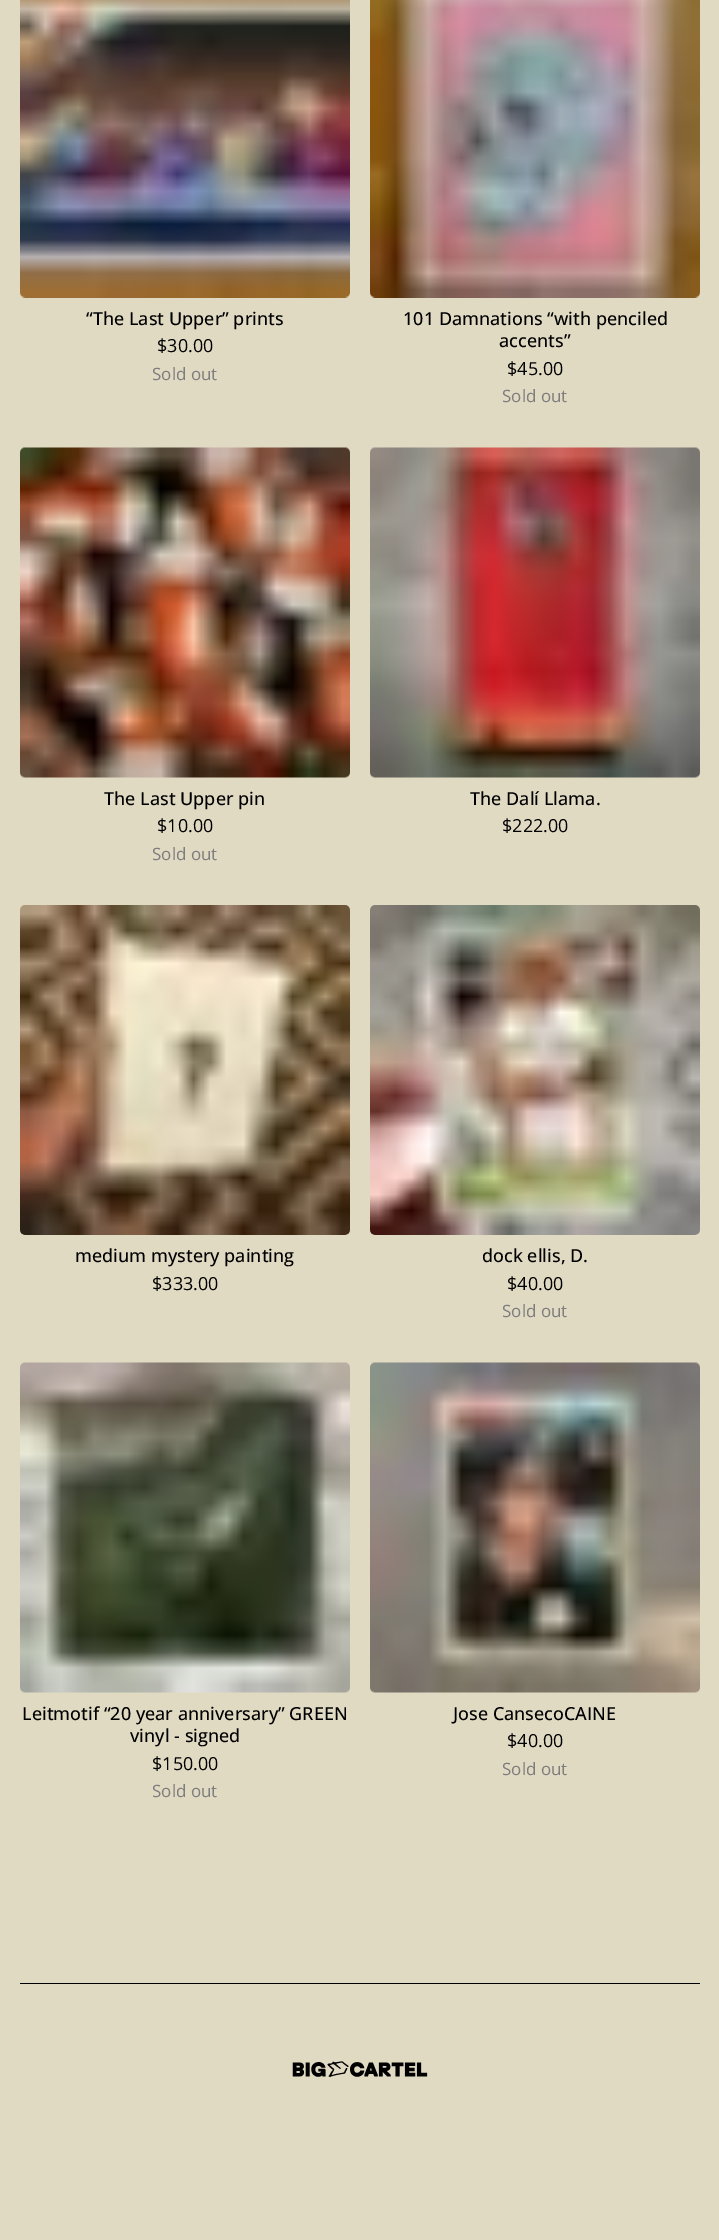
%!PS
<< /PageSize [719 2240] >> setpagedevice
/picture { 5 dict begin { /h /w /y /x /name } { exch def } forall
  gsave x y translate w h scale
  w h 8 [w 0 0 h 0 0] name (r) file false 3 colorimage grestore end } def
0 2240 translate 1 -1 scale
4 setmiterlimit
0.882 0.855 0.765 setrgbcolor
0 0 719 2240 rectfill
(img1.rgb) 20 0 330 298 picture
/OpenSans-Medium [18 0 0 -18 0 0] selectfont
0 setgray
86 325 moveto (“The Last Upper” prints) show
/OpenSans-Regular [18 0 0 -18 0 0] selectfont
157 352 moveto ($30.00) show
/OpenSans-Regular [17 0 0 -17 0 0] selectfont
0.494 0.49 0.49 setrgbcolor
152 380 moveto (Sold out) show
(img2.rgb) 370 0 330 298 picture
/OpenSans-Medium [18 0 0 -18 0 0] selectfont
0 setgray
403 325 moveto (101 Damnations “with penciled) show
499 347 moveto (accents”) show
/OpenSans-Regular [18 0 0 -18 0 0] selectfont
507 375 moveto ($45.00) show
/OpenSans-Regular [17 0 0 -17 0 0] selectfont
0.494 0.49 0.49 setrgbcolor
502 402 moveto (Sold out) show
(img3.rgb) 20 447 330 331 picture
/OpenSans-Medium [18 0 0 -18 0 0] selectfont
0 setgray
104 805 moveto (The Last Upper pin) show
/OpenSans-Regular [18 0 0 -18 0 0] selectfont
157 832 moveto ($10.00) show
/OpenSans-Regular [17 0 0 -17 0 0] selectfont
0.494 0.49 0.49 setrgbcolor
152 860 moveto (Sold out) show
(img4.rgb) 370 447 330 331 picture
/OpenSans-Medium [18 0 0 -18 0 0] selectfont
0 setgray
470 805 moveto (The Dalí Llama.) show
/OpenSans-Regular [18 0 0 -18 0 0] selectfont
502 832 moveto ($222.00) show
(img5.rgb) 20 905 330 330 picture
/OpenSans-Medium [18 0 0 -18 0 0] selectfont
75 1262 moveto (medium mystery painting) show
/OpenSans-Regular [18 0 0 -18 0 0] selectfont
152 1290 moveto ($333.00) show
(img6.rgb) 370 905 330 330 picture
/OpenSans-Medium [18 0 0 -18 0 0] selectfont
482 1262 moveto (dock ellis, D.) show
/OpenSans-Regular [18 0 0 -18 0 0] selectfont
507 1290 moveto ($40.00) show
/OpenSans-Regular [17 0 0 -17 0 0] selectfont
0.494 0.49 0.49 setrgbcolor
502 1317 moveto (Sold out) show
(img7.rgb) 20 1362 330 331 picture
/OpenSans-Medium [18 0 0 -18 0 0] selectfont
0 setgray
22 1720 moveto (Leitmotif “20 year anniversary” GREEN) show
130 1742 moveto (vinyl - signed) show
/OpenSans-Regular [18 0 0 -18 0 0] selectfont
152 1770 moveto ($150.00) show
/OpenSans-Regular [17 0 0 -17 0 0] selectfont
0.494 0.49 0.49 setrgbcolor
152 1797 moveto (Sold out) show
(img8.rgb) 370 1362 330 331 picture
/OpenSans-Medium [18 0 0 -18 0 0] selectfont
0 setgray
453 1720 moveto (Jose CansecoCAINE) show
/OpenSans-Regular [18 0 0 -18 0 0] selectfont
507 1747 moveto ($40.00) show
/OpenSans-Regular [17 0 0 -17 0 0] selectfont
0.494 0.49 0.49 setrgbcolor
502 1775 moveto (Sold out) show
0 setgray
20 1983 680 1 rectfill
(img9.rgb) 292 2061 136 16 picture
showpage
